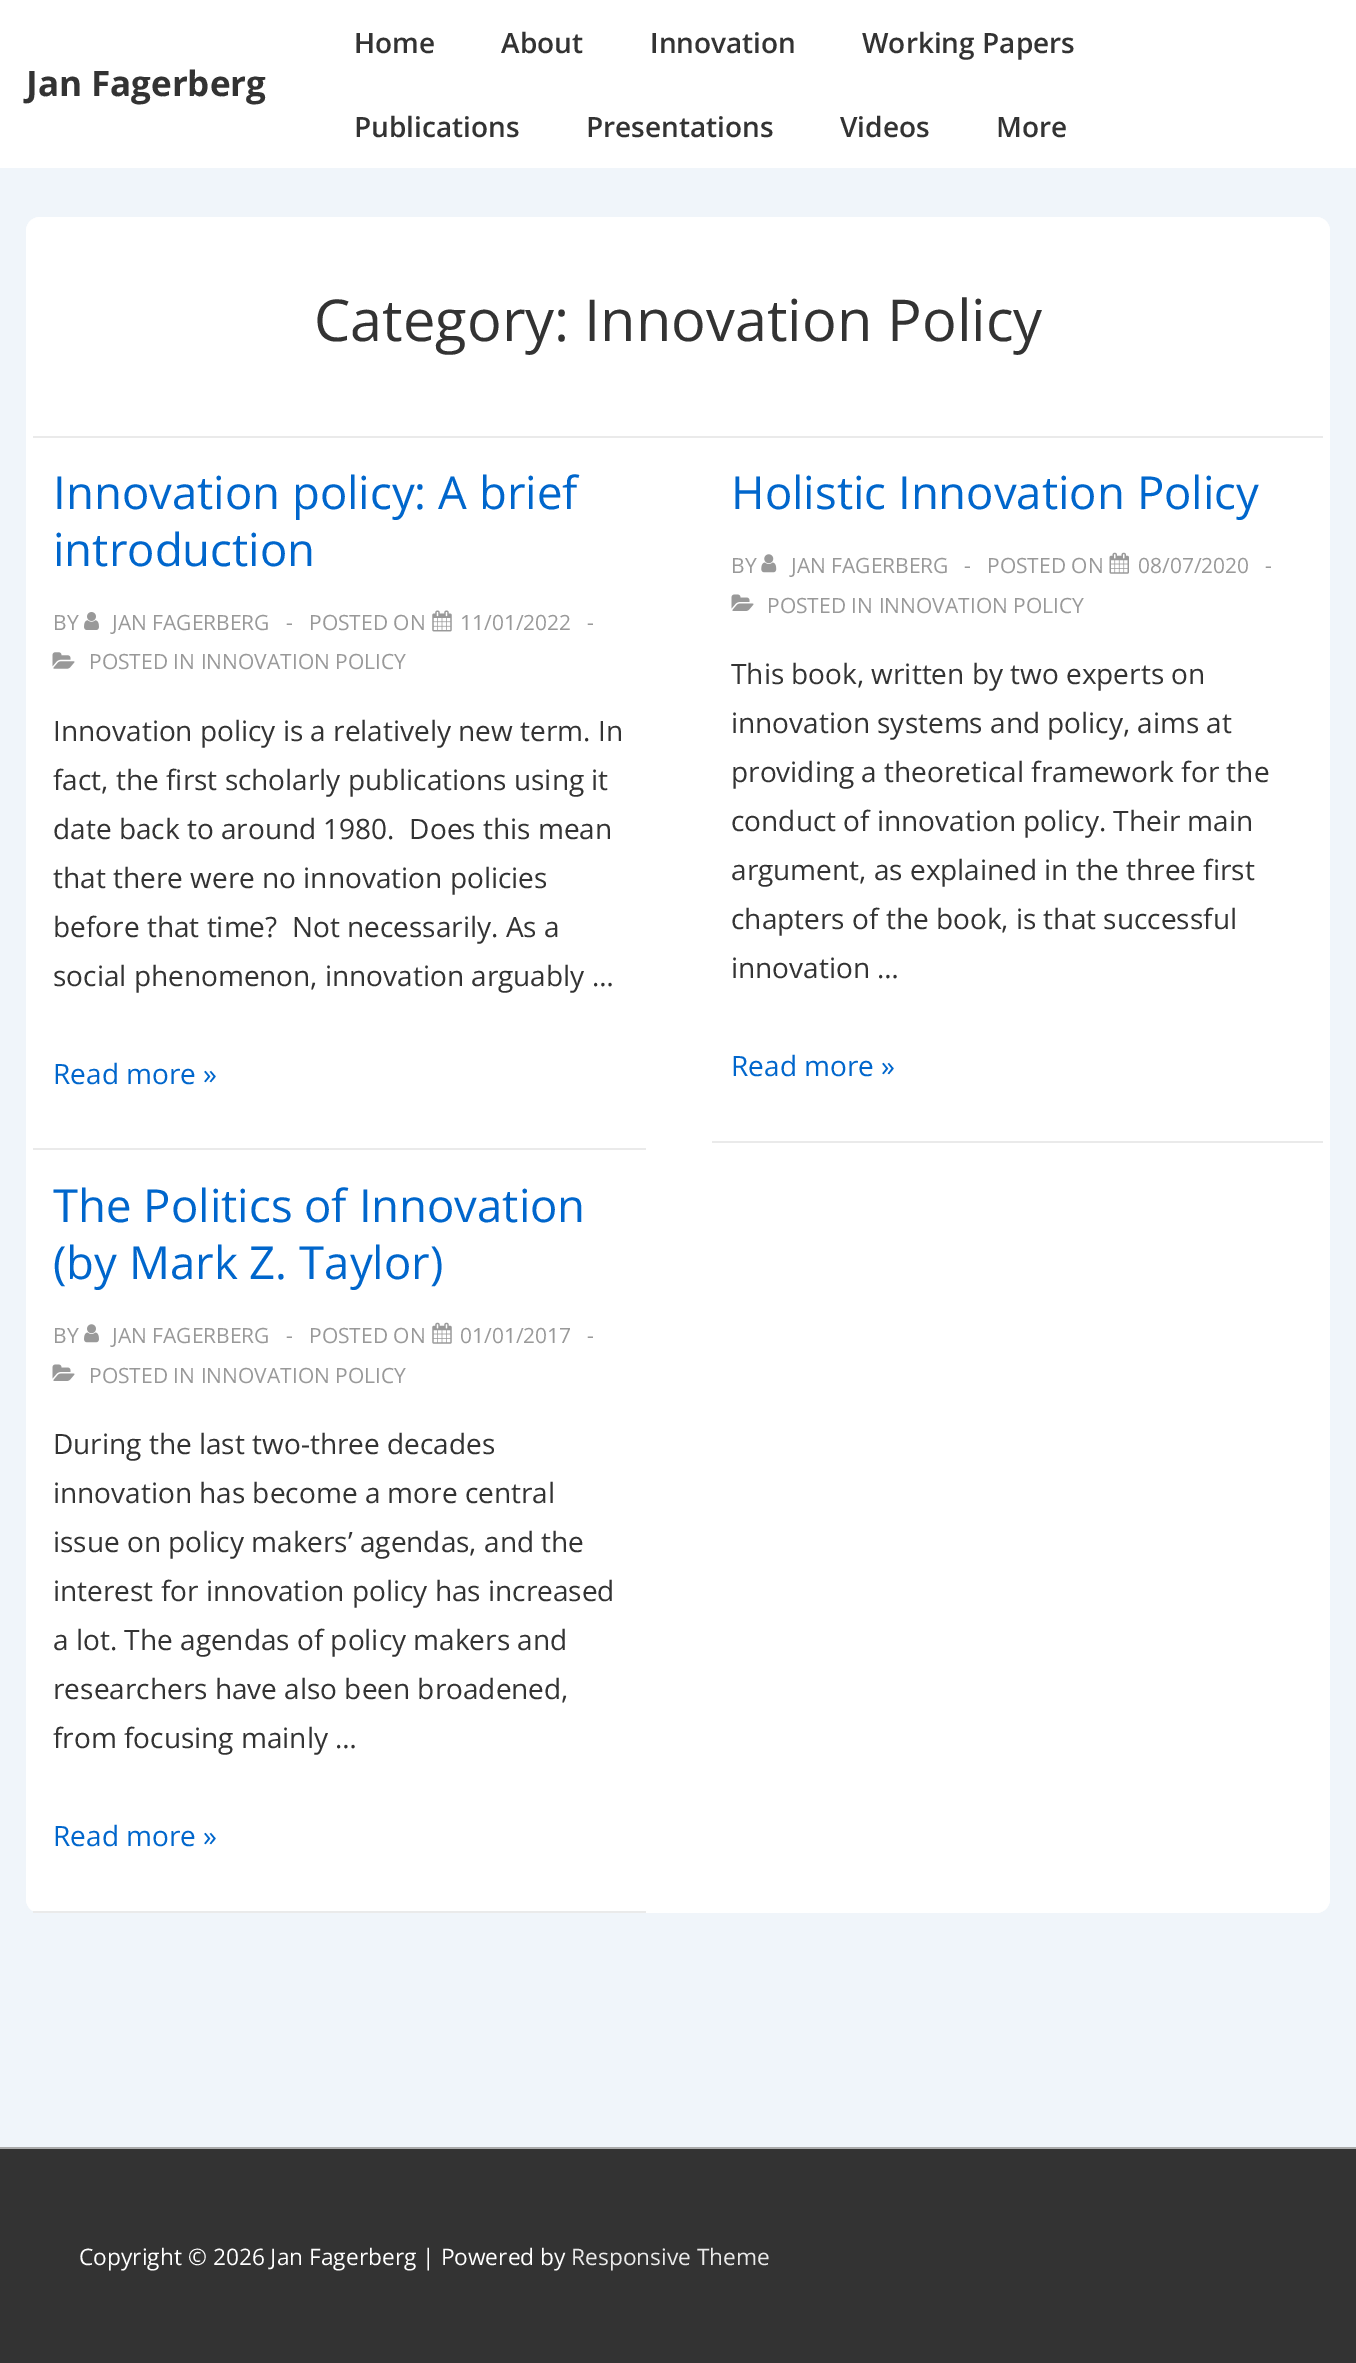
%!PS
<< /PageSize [1356 2363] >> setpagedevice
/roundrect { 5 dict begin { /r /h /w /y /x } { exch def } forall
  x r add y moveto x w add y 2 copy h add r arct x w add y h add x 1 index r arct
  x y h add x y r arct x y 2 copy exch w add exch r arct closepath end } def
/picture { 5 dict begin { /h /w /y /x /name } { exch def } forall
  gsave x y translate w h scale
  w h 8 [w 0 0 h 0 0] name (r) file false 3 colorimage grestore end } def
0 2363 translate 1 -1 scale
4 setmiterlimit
0.941 0.961 0.98 setrgbcolor
0 0 1356 2363 rectfill
1 setgray
0 0 1356 168 rectfill
/OpenSans-Bold [35 0 0 -35 0 0] selectfont
0.2 setgray
26 96 moveto (Jan Fagerberg) show
/OpenSans-SemiBold [28 0 0 -28 0 0] selectfont
354 53 moveto (Home) show
501 53 moveto (About) show
650 53 moveto (Innovation) show
862 53 moveto (Working Papers) show
354 137 moveto (Publications) show
586 137 moveto (Presentations) show
840 137 moveto (Videos) show
996 137 moveto (More) show
1 setgray
26 217 1304 1696 14 roundrect fill
26 217 1304 221 14 roundrect fill
0.918 setgray
33 436 1290 2 rectfill
/OpenSans-Regular [57.75 0 0 -57.75 0 0] selectfont
0.2 setgray
314 341 moveto (Category: Innovation Policy) show
1 setgray
26 438 1304 1475 14 roundrect fill
0.918 setgray
33 1148 613 2 rectfill
/OpenSans-Regular [45.5 0 0 -45.5 0 0] selectfont
0 0.4 0.8 setrgbcolor
53 509 moveto (Innovation policy: A brief) show
53 566 moveto (introduction) show
/OpenSans-Regular [21 0 0 -21 0 0] selectfont
0.6 setgray
53 630 moveto (BY) show
(img1.rgb) 84 612 15 18 picture
112 630 moveto (JAN FAGERBERG) show
286 630 moveto (-) show
309 630 moveto (POSTED ON) show
(img2.rgb) 432 610 20 22 picture
460 630 moveto (11/01/2022) show
587 630 moveto (-) show
(img3.rgb) 52 652 23 17 picture
89 669 moveto (POSTED IN INNOVATION POLICY) show
/OpenSans-Regular [28 0 0 -28 0 0] selectfont
0.2 setgray
53 741 moveto (Innovation policy is a relatively new term. In) show
53 790 moveto (fact, the first scholarly publications using it) show
53 839 moveto (date back to around 1980.  Does this mean) show
53 888 moveto (that there were no innovation policies) show
53 937 moveto (before that time?  Not necessarily. As a) show
53 986 moveto (social phenomenon, innovation arguably …) show
0 0.4 0.8 setrgbcolor
53 1084 moveto (Read more ») show
0.918 setgray
712 1141 611 2 rectfill
/OpenSans-Regular [45.5 0 0 -45.5 0 0] selectfont
0 0.4 0.8 setrgbcolor
731 509 moveto (Holistic Innovation Policy) show
/OpenSans-Regular [21 0 0 -21 0 0] selectfont
0.6 setgray
731 573 moveto (BY) show
(img4.rgb) 761 554 16 19 picture
791 573 moveto (JAN FAGERBERG) show
964 573 moveto (-) show
987 573 moveto (POSTED ON) show
(img5.rgb) 1109 552 20 22 picture
1138 573 moveto (08/07/2020) show
1265 573 moveto (-) show
(img6.rgb) 731 594 23 17 picture
767 613 moveto (POSTED IN INNOVATION POLICY) show
/OpenSans-Regular [28 0 0 -28 0 0] selectfont
0.2 setgray
731 684 moveto (This book, written by two experts on) show
731 733 moveto (innovation systems and policy, aims at) show
731 782 moveto (providing a theoretical framework for the) show
731 831 moveto (conduct of innovation policy. Their main) show
731 880 moveto (argument, as explained in the three first) show
731 929 moveto (chapters of the book, is that successful) show
731 978 moveto (innovation …) show
0 0.4 0.8 setrgbcolor
731 1076 moveto (Read more ») show
0.918 setgray
33 1911 613 2 rectfill
/OpenSans-Regular [45.5 0 0 -45.5 0 0] selectfont
0 0.4 0.8 setrgbcolor
53 1222 moveto (The Politics of Innovation) show
53 1279 moveto (\(by Mark Z. Taylor\)) show
/OpenSans-Regular [21 0 0 -21 0 0] selectfont
0.6 setgray
53 1343 moveto (BY) show
(img7.rgb) 84 1324 15 19 picture
112 1343 moveto (JAN FAGERBERG) show
286 1343 moveto (-) show
309 1343 moveto (POSTED ON) show
(img8.rgb) 432 1322 20 22 picture
460 1343 moveto (01/01/2017) show
587 1343 moveto (-) show
(img6.rgb) 52 1364 23 17 picture
89 1383 moveto (POSTED IN INNOVATION POLICY) show
/OpenSans-Regular [28 0 0 -28 0 0] selectfont
0.2 setgray
53 1454 moveto (During the last two-three decades) show
53 1503 moveto (innovation has become a more central) show
53 1552 moveto (issue on policy makers’ agendas, and the) show
53 1601 moveto (interest for innovation policy has increased) show
53 1650 moveto (a lot. The agendas of policy makers and) show
53 1699 moveto (researchers have also been broadened,) show
53 1748 moveto (from focusing mainly …) show
0 0.4 0.8 setrgbcolor
53 1846 moveto (Read more ») show
0.2 setgray
0 2149 1356 214 rectfill
0.667 setgray
0 2147 1356 2 rectfill
/OpenSans-Regular [22.75 0 0 -22.75 0 0] selectfont
1 setgray
79 2265 moveto (Copyright © 2026 Jan Fagerberg | Powered by) show
0.918 setgray
571 2265 moveto (Responsive Theme) show
showpage
